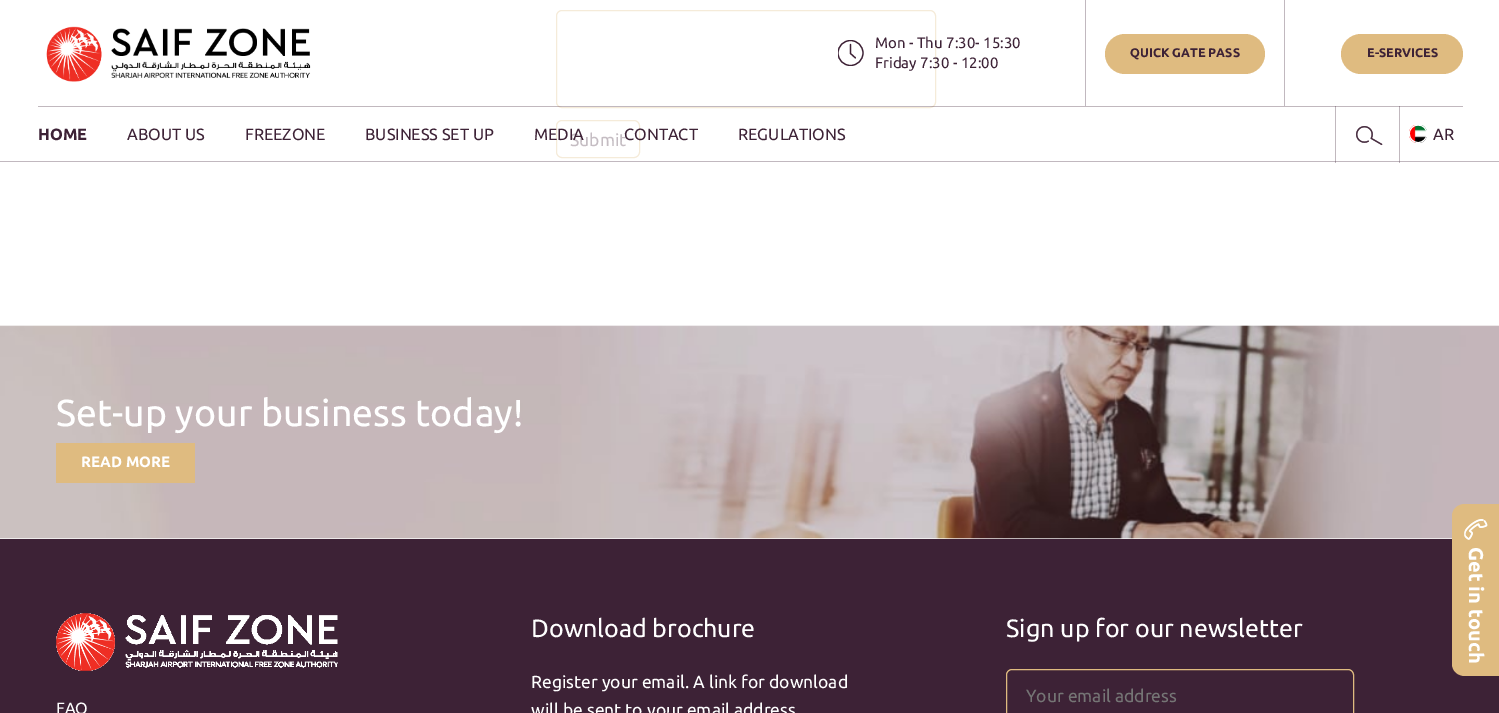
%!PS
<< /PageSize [1499 713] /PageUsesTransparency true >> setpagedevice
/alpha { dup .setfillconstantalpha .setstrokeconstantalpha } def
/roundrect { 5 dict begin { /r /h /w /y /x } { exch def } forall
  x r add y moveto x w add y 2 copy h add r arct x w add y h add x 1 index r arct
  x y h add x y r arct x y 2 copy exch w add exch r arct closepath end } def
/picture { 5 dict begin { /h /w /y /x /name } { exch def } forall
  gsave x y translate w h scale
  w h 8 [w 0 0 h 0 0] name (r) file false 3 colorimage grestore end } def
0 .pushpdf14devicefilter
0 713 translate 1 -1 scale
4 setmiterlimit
1 setgray
0 0 1499 713 rectfill
0.961 0.922 0.851 setrgbcolor
556.5 10.5 379 97 5.5 roundrect stroke
0.32 alpha
0.239 0.133 0.212 setrgbcolor
38 106 1425 1 rectfill
1 alpha
(img1.rgb) 46 26 265 56 picture
gsave
838 40 26 26 rectclip
0.243 0.133 0.212 setrgbcolor
1.2 setlinewidth
newpath 850.5 53 12.5 0 360 arc closepath stroke
grestore
0.243 0.133 0.212 setrgbcolor
1.2 setlinewidth
1 setlinecap
newpath 850.5 44.5 moveto 850.5 53.5 lineto 855.5 58 lineto stroke
/Ubuntu-Regular [15 0 0 -15 0 0] selectfont
0.239 0.133 0.212 setrgbcolor
875 48 moveto (Mon - Thu 7:30- 15:30) show
875 68 moveto (Friday 7:30 - 12:00) show
0.757 0.722 0.749 setrgbcolor
1284 0 1 106 rectfill
1085 0 1 106 rectfill
0.875 0.733 0.502 setrgbcolor
1105 34 160 40 20 roundrect fill
/Ubuntu-Bold [12.5 0 0 -12.5 0 0] selectfont
0.239 0.133 0.212 setrgbcolor
1130 57 moveto (QUICK GATE PASS) show
0.875 0.733 0.502 setrgbcolor
1341 34 122 40 20 roundrect fill
0.239 0.133 0.212 setrgbcolor
1367 57 moveto (E-SERVICES) show
0.757 0.722 0.749 setrgbcolor
0 161 1499 1 rectfill
/Ubuntu-Bold [16.25 0 0 -16.25 0 0] selectfont
0.239 0.133 0.212 setrgbcolor
38 140 moveto (HOME) show
/Ubuntu-Regular [16.25 0 0 -16.25 0 0] selectfont
127 140 moveto (ABOUT US) show
245 140 moveto (FREEZONE) show
365 140 moveto (BUSINESS SET UP) show
0.961 0.922 0.851 setrgbcolor
1 setlinewidth
0 setlinecap
556.5 120.5 83 37 5.5 roundrect stroke
/Ubuntu-Regular [17.5 0 0 -17.5 0 0] selectfont
0.773 0.741 0.765 setrgbcolor
570 146 moveto (Submit) show
/Ubuntu-Regular [16.25 0 0 -16.25 0 0] selectfont
0.239 0.133 0.212 setrgbcolor
534 140 moveto (MEDIA) show
624 140 moveto (CONTACT) show
738 140 moveto (REGULATIONS) show
0.32 alpha
1399 106 1 57 rectfill
1335 106 1 57 rectfill
1 alpha
(img2.rgb) 1356 126 27 20 picture
(img3.rgb) 1409 125 18 18 picture
1433 140 moveto (AR) show
(img4.rgb) 0 325 1499 214 picture
/Ubuntu-Regular [37.5 0 0 -37.5 0 0] selectfont
1 setgray
56 426 moveto (Set-up your business today!) show
0.875 0.733 0.502 setrgbcolor
56 443 139 40 rectfill
/Ubuntu-Bold [15 0 0 -15 0 0] selectfont
1 setgray
81 467 moveto (READ MORE) show
0.239 0.133 0.212 setrgbcolor
0 539 1499 174 rectfill
/Ubuntu-Regular [25 0 0 -25 0 0] selectfont
1 setgray
531 637 moveto (Download brochure) show
/Ubuntu-Regular [17.5 0 0 -17.5 0 0] selectfont
531 688 moveto (Register your email. A link for download) show
531 716 moveto (will be sent to your email address) show
/Ubuntu-Regular [25 0 0 -25 0 0] selectfont
1006 637 moveto (Sign up for our newsletter) show
0.875 0.733 0.502 setrgbcolor
1006.5 669.5 347 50 5.5 roundrect stroke
/Ubuntu-Regular [17.5 0 0 -17.5 0 0] selectfont
0.459 setgray
1026 702 moveto (Your email address) show
(img5.rgb) 56 613 282 58 picture
/Ubuntu-Regular [16.25 0 0 -16.25 0 0] selectfont
1 setgray
56 714 moveto (FAQ) show
0.875 0.733 0.502 setrgbcolor
newpath 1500 504 moveto 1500 676 lineto 1465 676 lineto 1458 676 1452 671 1452 664 curveto 1452 516 lineto 1452 509 1458 504 1465 504 curveto closepath fill
(img6.rgb) 1464 519 24 21 picture
/Ubuntu-Bold [20 0 0 -20 0 0] selectfont
1 setgray
gsave 1469 547 translate 90 rotate 0 0 moveto (Get in touch) show grestore
.poppdf14devicefilter showpage
